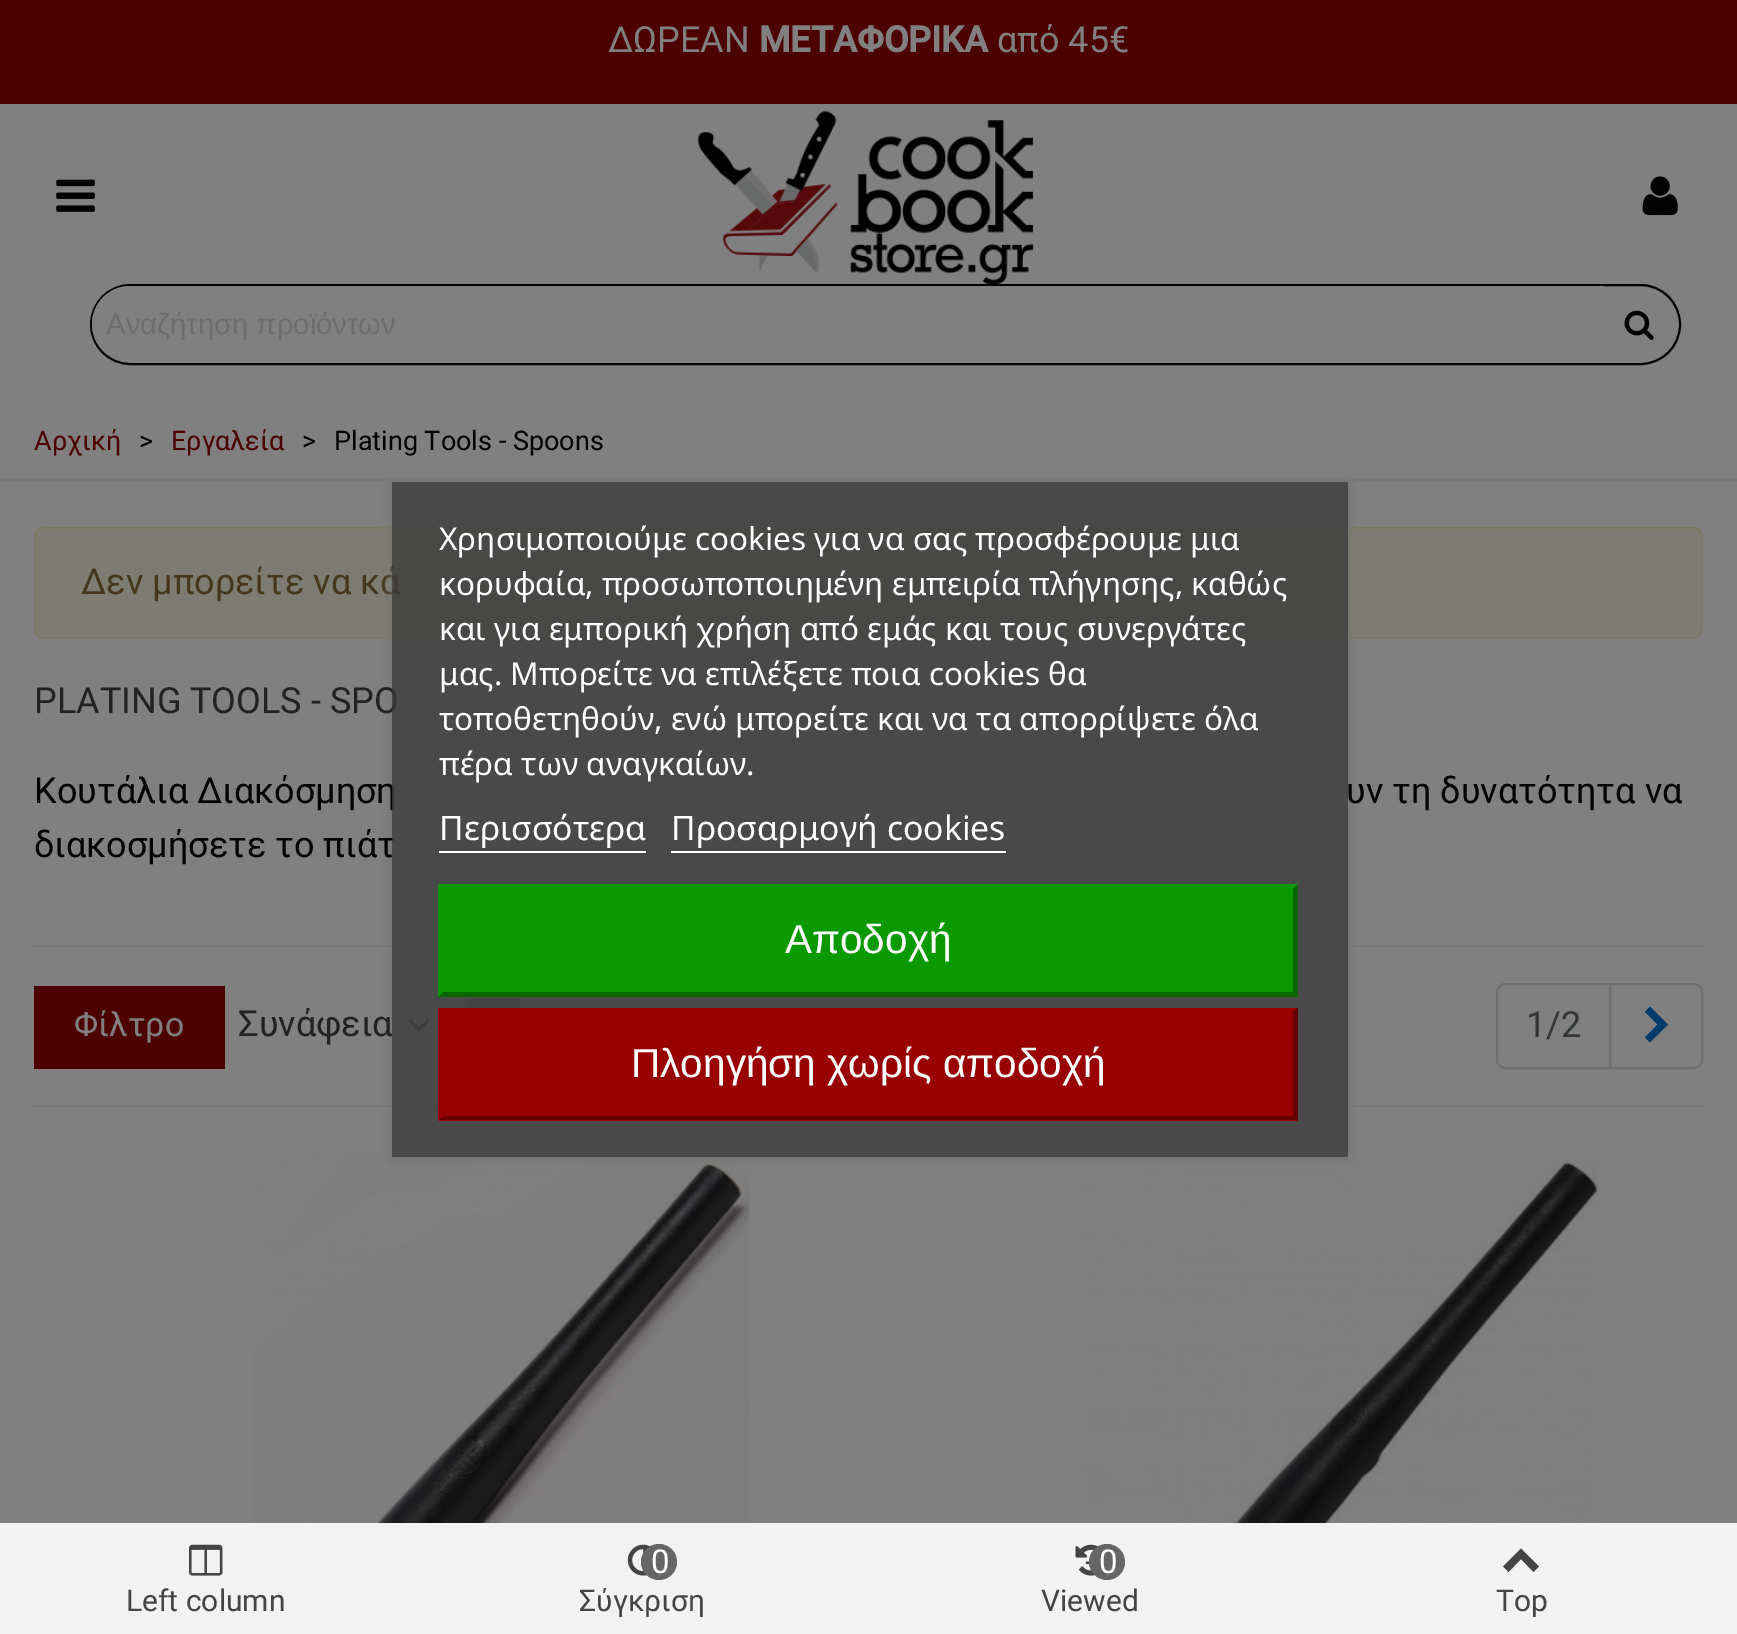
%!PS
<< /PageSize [1737 1634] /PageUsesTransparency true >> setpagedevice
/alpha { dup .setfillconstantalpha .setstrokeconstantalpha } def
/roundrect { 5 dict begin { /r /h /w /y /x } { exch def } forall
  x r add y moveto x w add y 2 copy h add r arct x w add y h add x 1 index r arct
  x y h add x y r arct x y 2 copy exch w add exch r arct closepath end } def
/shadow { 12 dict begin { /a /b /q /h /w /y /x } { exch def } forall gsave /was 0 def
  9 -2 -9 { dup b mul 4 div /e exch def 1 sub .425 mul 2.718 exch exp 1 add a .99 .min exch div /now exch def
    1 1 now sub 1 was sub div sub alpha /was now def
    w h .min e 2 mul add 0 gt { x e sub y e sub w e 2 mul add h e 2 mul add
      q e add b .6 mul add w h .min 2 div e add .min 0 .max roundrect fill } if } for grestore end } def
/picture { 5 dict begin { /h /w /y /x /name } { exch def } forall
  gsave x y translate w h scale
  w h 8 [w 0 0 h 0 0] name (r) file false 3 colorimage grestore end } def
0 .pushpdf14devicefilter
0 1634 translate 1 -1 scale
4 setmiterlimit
0.502 setgray
0 0 1737 1634 rectfill
0.302 0 0 setrgbcolor
0 0 1737 104 rectfill
/Roboto-Regular [36 0 0 -36 0 0] selectfont
0.502 setgray
608 52 moveto (ΔΩΡΕΑΝ) show
/Roboto-Bold [36 0 0 -36 0 0] selectfont
759 52 moveto (ΜΕΤΑΦΟΡΙΚΑ) show
/Roboto-Regular [36 0 0 -36 0 0] selectfont
997 52 moveto (από 45€) show
(img1.rgb) 56 179 39 33 picture
(img2.rgb) 697 111 337 173 picture
(img3.rgb) 1642 176 36 40 picture
0.008 setgray
2 setlinewidth
91 285 1589 79 39.5 roundrect stroke
0.502 setgray
newpath 130 286 moveto 1604 286 lineto 1604 362 lineto 130 362 lineto 109 362 92 345 92 324 curveto 92 303 109 286 130 286 curveto closepath fill
/LiberationSans-Regular [29.25 0 0 -29.25 0 0] selectfont
0.427 setgray
106 334 moveto (Αναζήτηση προϊόντων) show
(img4.rgb) 1624 310 30 30 picture
0.475 setgray
0 479 1737 2 rectfill
/Roboto-Regular [27 0 0 -27 0 0] selectfont
0.302 0 0 setrgbcolor
34 450 moveto (Αρχική) show
0.008 setgray
139 450 moveto (>) show
0.302 0 0 setrgbcolor
171 450 moveto (Εργαλεία) show
0.008 setgray
302 450 moveto (>) show
334 450 moveto (Plating Tools - Spoons) show
0.494 0.486 0.447 setrgbcolor
35 528 1667 110 8 roundrect gsave fill grestore
0.49 0.475 0.4 setrgbcolor
stroke
/Roboto-Regular [36 0 0 -36 0 0] selectfont
0.271 0.216 0.118 setrgbcolor
81 594 moveto (Δεν μπορείτε να κά) show
0.475 setgray
34 945 1669 2 rectfill
34 1105 1669 2 rectfill
0.369 setgray
466 999 54 9 rectfill
(img5.rgb) 408 1019 21 13 picture
(img6.rgb) 253 1152 497 371 picture
(img7.rgb) 1074 1160 524 363 picture
gsave
newpath 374 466 moveto 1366 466 lineto 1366 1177 lineto 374 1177 lineto closepath 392 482 moveto 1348 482 lineto 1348 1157 lineto 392 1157 lineto closepath eoclip newpath
0.439 setgray
392 484 956 675 0 5.5 1 shadow
grestore
0.133 setgray
34 713 moveto (PLATING TOOLS - SPO) show
0.008 setgray
34 803 moveto (Κουτάλια Διακόσμηση) show
34 857 moveto (διακοσμήσετε το πιάτ) show
0.133 setgray
238 1036 moveto (Συνάφεια) show
0.8 alpha
0.231 setgray
392 482 956 675 rectfill
/NotoSans-Regular [31.5 0 0 -31.5 0 0] selectfont
1 alpha
1 setgray
439 550 moveto (Χρησιμοποιούμε cookies για να σας προσφέρουμε μια) show
439 595 moveto (κορυφαία, προσωποποιημένη εμπειρία πλήγησης, καθώς) show
439 640 moveto (και για εμπορική χρήση από εμάς και τους συνεργάτες) show
439 685 moveto (μας. Μπορείτε να επιλέξετε ποια cookies θα) show
439 730 moveto (τοποθετηθούν, ενώ μπορείτε και να τα απορρίψετε όλα) show
439 775 moveto (πέρα των αναγκαίων.) show
/NotoSans-Regular [33.75 0 0 -33.75 0 0] selectfont
439 840 moveto (Περισσότερα) show
439 851 207 2 rectfill
671 840 moveto (Προσαρμογή cookies) show
671 851 335 2 rectfill
0.043 0.6 0 setrgbcolor
439 884 859 113 rectfill
newpath 438 884 moveto 1298 884 lineto 1293 889 lineto 443 889 lineto closepath fill
0.027 0.4 0 setrgbcolor
newpath 1298 884 moveto 1298 997 lineto 1293 992 lineto 1293 889 lineto closepath fill
newpath 1298 997 moveto 438 997 lineto 443 992 lineto 1293 992 lineto closepath fill
0.043 0.6 0 setrgbcolor
newpath 438 997 moveto 438 884 lineto 443 889 lineto 443 992 lineto closepath fill
/LiberationSans-Regular [40.5 0 0 -40.5 0 0] selectfont
1 setgray
785 953 moveto (Αποδοχή) show
0.6 0 0 setrgbcolor
439 1008 859 113 rectfill
newpath 438 1008 moveto 1298 1008 lineto 1293 1012 lineto 443 1012 lineto closepath fill
0.4 0 0 setrgbcolor
newpath 1298 1008 moveto 1298 1120 lineto 1293 1116 lineto 1293 1012 lineto closepath fill
newpath 1298 1120 moveto 438 1120 lineto 443 1116 lineto 1293 1116 lineto closepath fill
0.6 0 0 setrgbcolor
newpath 438 1120 moveto 438 1008 lineto 443 1012 lineto 443 1116 lineto closepath fill
1 setgray
631 1077 moveto (Πλοηγήση χωρίς αποδοχή) show
/Roboto-Regular [36 0 0 -36 0 0] selectfont
0.008 setgray
1346 803 moveto (υν τη δυνατότητα να) show
0.302 0 0 setrgbcolor
34 986 191 83 rectfill
/Roboto-Regular [33.75 0 0 -33.75 0 0] selectfont
0.502 setgray
74 1036 moveto (Φίλτρο) show
0.435 setgray
newpath 1610 984 moveto 1694 984 lineto 1698.5 984 1702 987.5 1702 992 curveto 1702 1060 lineto 1702 1064.5 1698.5 1068 1694 1068 curveto 1610 1068 lineto closepath stroke
0.502 setgray
newpath 1505 984 moveto 1610 984 lineto 1610 1068 lineto 1505 1068 lineto 1500.5 1068 1497 1064.5 1497 1060 curveto 1497 992 lineto 1497 987.5 1500.5 984 1505 984 curveto closepath gsave fill grestore
0.435 setgray
stroke
/Roboto-Regular [36 0 0 -36 0 0] selectfont
0.196 0.212 0.224 setrgbcolor
1526 1037 moveto (1/2) show
0.004 0.231 0.424 setrgbcolor
newpath 1645 1037.5 moveto 1657.5 1024.5 lineto 1645 1012 lineto 1650 1006.5 lineto 1668 1024.5 lineto 1650 1042.5 lineto closepath fill
0.949 setgray
0 1523 1737 111 rectfill
(img8.rgb) 189 1544 34 32 picture
/Roboto-Regular [30 0 0 -30 0 0] selectfont
0.267 setgray
126 1611 moveto (Left column) show
(img9.rgb) 627 1544 24 32 picture
0.4 setgray
newpath 659 1562 18 0 360 arc closepath fill
/Roboto-Regular [33 0 0 -33 0 0] selectfont
1 setgray
651 1573 moveto (0) show
/Roboto-Regular [30 0 0 -30 0 0] selectfont
0.267 setgray
579 1611 moveto (Σύγκριση) show
(img10.rgb) 1075 1544 24 32 picture
0.4 setgray
newpath 1107 1562 18 0 360 arc closepath fill
/Roboto-Regular [33 0 0 -33 0 0] selectfont
1 setgray
1099 1573 moveto (0) show
/Roboto-Regular [30 0 0 -30 0 0] selectfont
0.267 setgray
1041 1611 moveto (Viewed) show
newpath 1503 1566.5 moveto 1521 1548.5 lineto 1539 1566.5 lineto 1533.5 1572 lineto 1521 1559 lineto 1508.5 1572 lineto closepath fill
1496 1611 moveto (Top) show
.poppdf14devicefilter showpage
